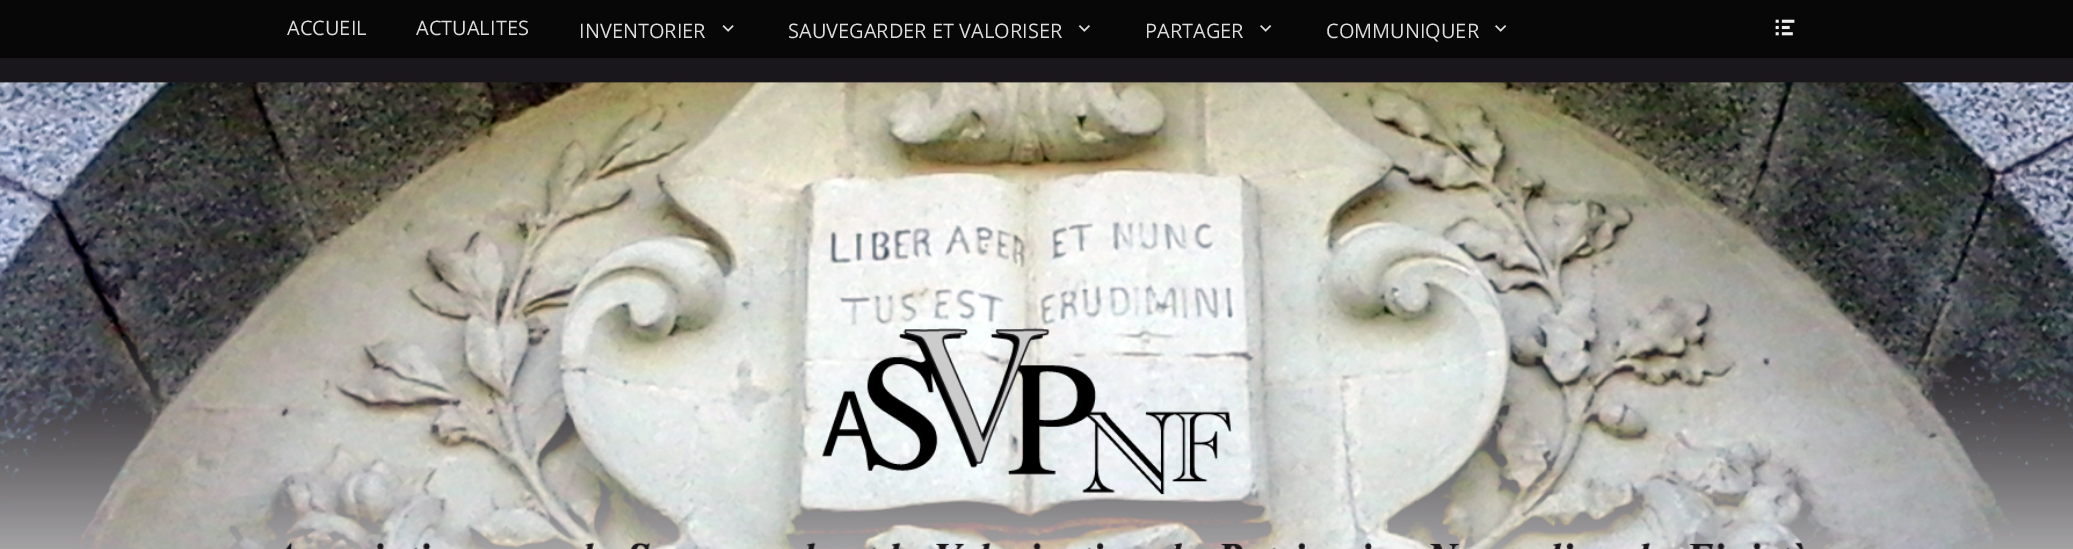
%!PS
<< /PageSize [2073 549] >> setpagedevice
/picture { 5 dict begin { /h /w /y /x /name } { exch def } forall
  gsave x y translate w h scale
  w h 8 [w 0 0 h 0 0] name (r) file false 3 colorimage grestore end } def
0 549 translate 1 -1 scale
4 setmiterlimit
1 setgray
0 0 2073 549 rectfill
0.031 0.027 0.031 setrgbcolor
0 0 2073 58 rectfill
/OpenSans-Regular [20 0 0 -20 0 0] selectfont
0.867 setgray
287 35 moveto (ACCUEIL) show
416 35 moveto (ACTUALITES) show
579 38 moveto (INVENTORIER) show
(img1.rgb) 722 25 12 7 picture
788 38 moveto (SAUVEGARDER ET VALORISER) show
(img2.rgb) 1078 25 12 7 picture
1145 38 moveto (PARTAGER) show
(img3.rgb) 1260 25 12 7 picture
1326 38 moveto (COMMUNIQUER) show
(img3.rgb) 1495 25 12 7 picture
(img4.rgb) 1775 19 20 17 picture
(img5.rgb) 0 58 2073 491 picture
showpage
